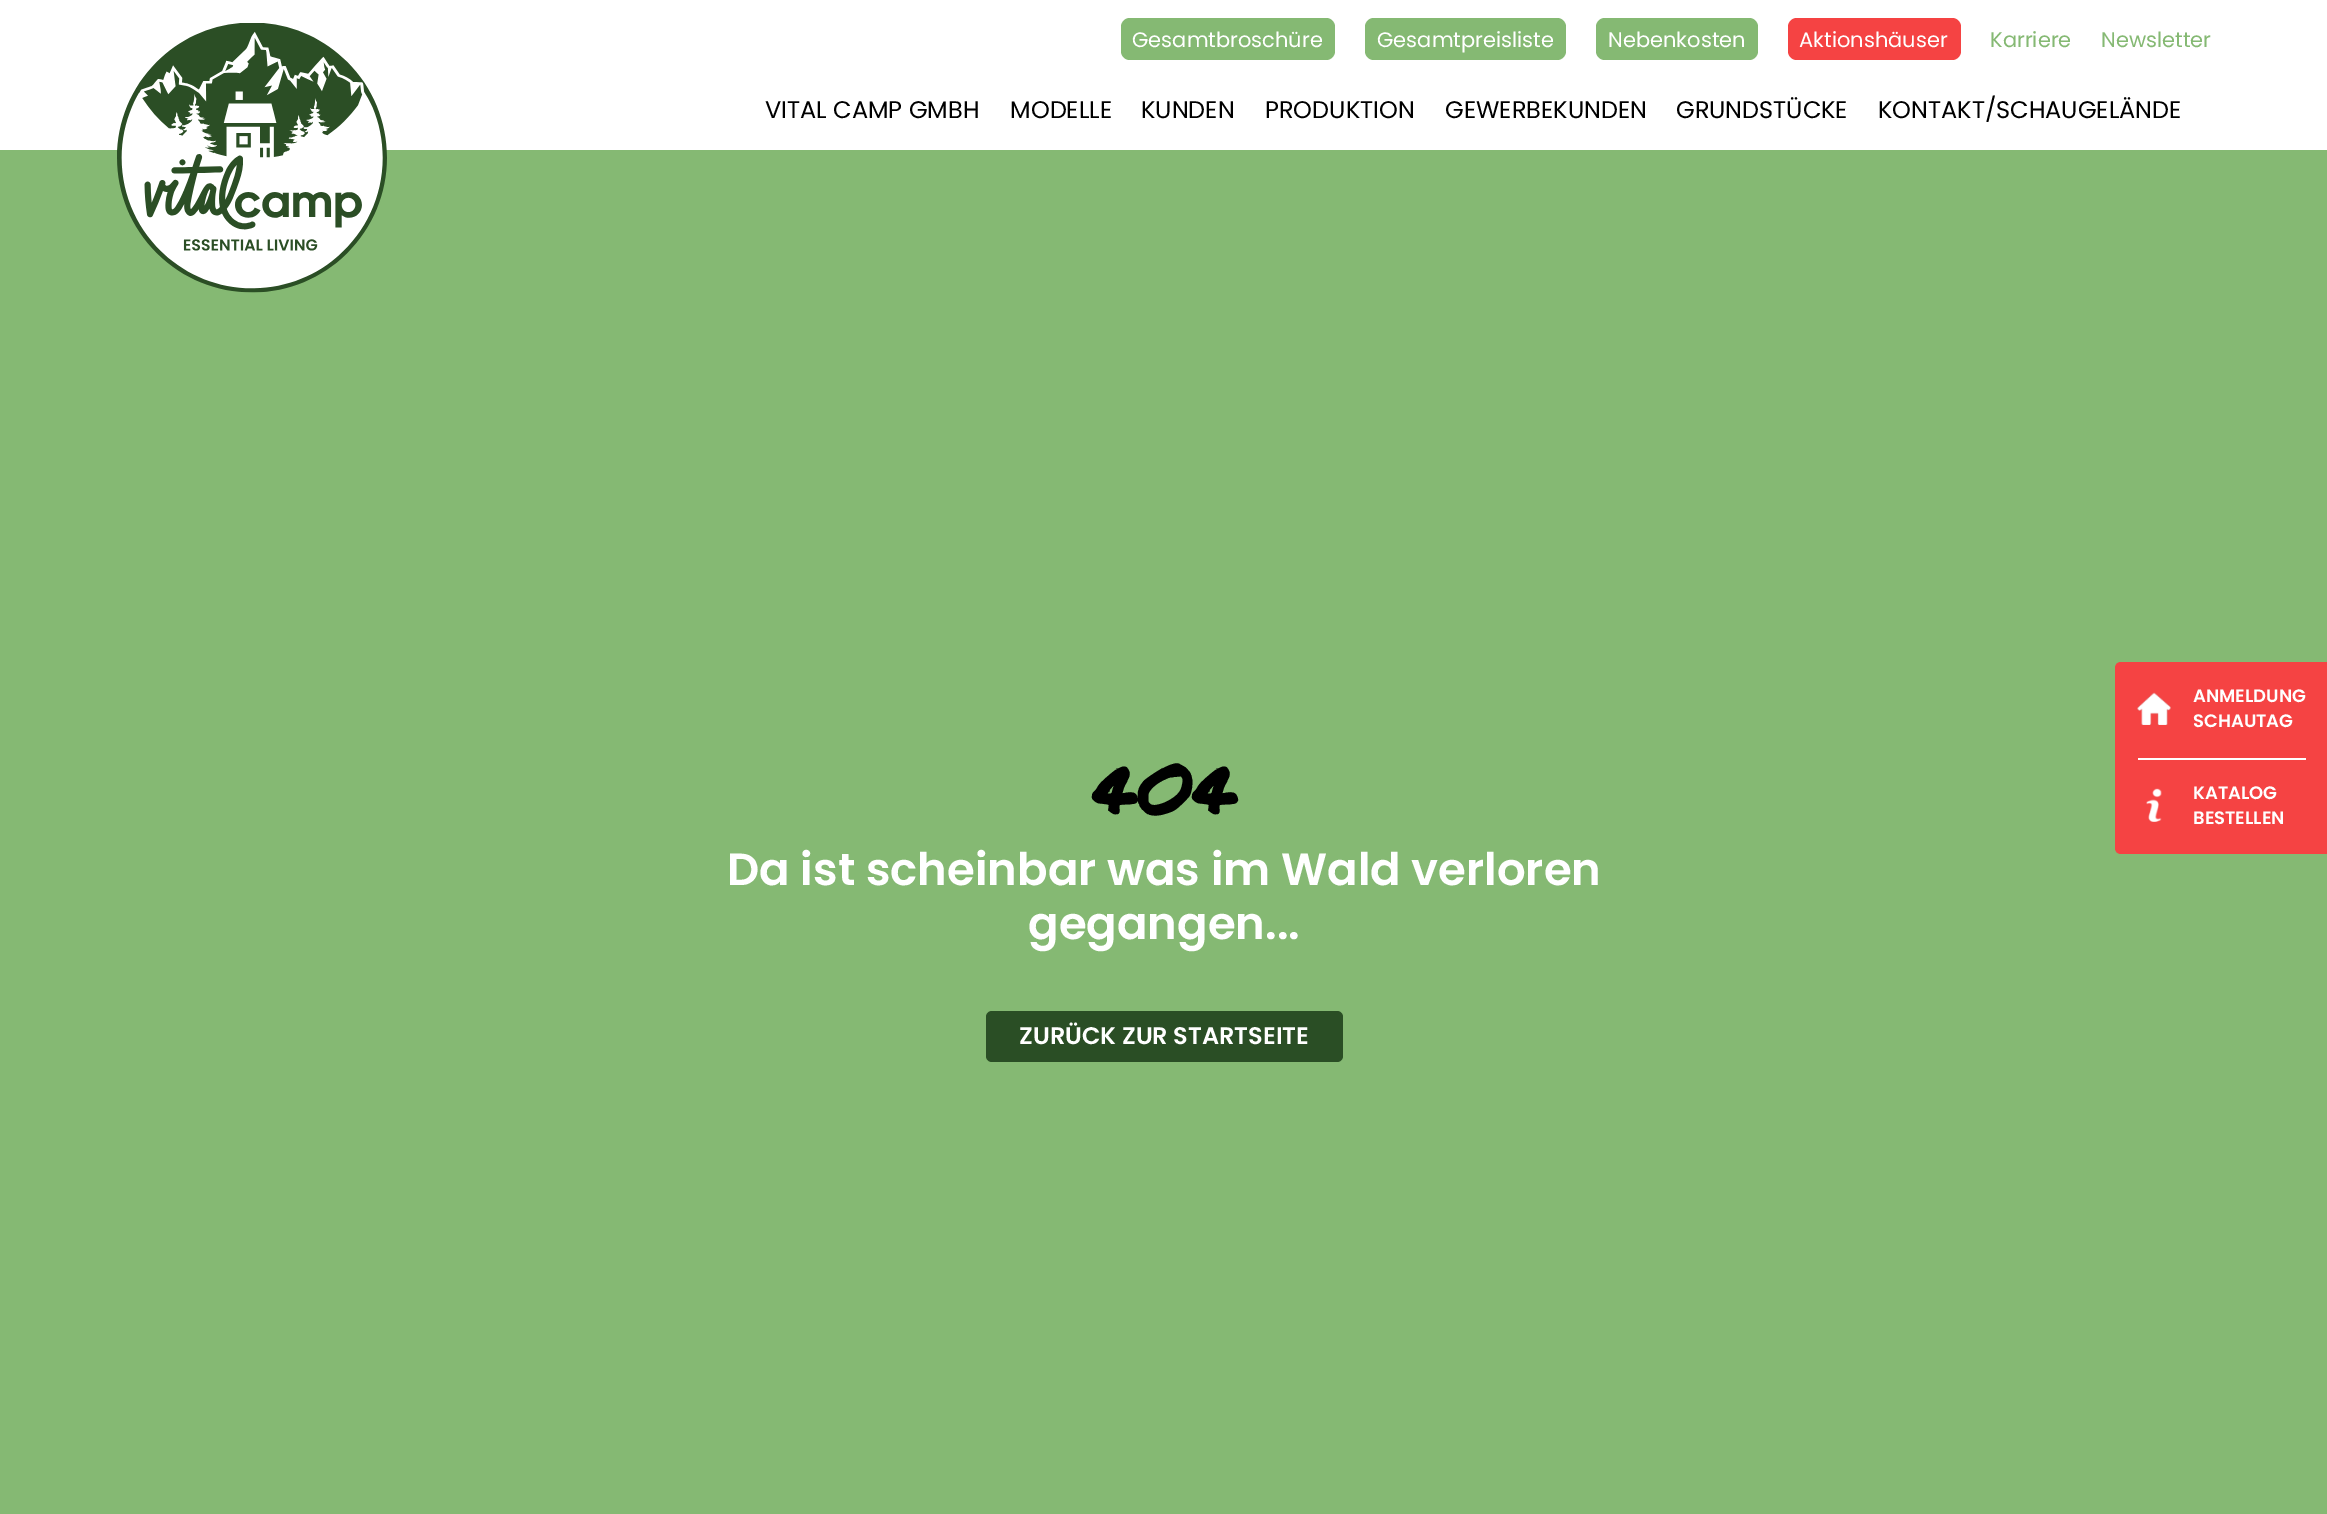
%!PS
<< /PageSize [2327 1514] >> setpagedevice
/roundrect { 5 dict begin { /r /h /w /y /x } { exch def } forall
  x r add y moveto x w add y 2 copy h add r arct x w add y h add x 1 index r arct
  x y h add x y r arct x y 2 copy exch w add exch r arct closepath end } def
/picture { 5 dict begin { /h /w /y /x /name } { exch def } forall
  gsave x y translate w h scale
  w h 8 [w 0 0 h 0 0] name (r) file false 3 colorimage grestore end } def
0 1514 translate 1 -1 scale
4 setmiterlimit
1 setgray
0 0 2327 1514 rectfill
0.522 0.725 0.451 setrgbcolor
0 150 2327 1364 rectfill
(img1.rgb) 117 23 270 270 picture
1121 18 214 42 9 roundrect fill
/Poppins-Regular [21 0 0 -21 0 0] selectfont
1 setgray
1132 47 moveto (Gesamtbroschüre) show
0.522 0.725 0.451 setrgbcolor
1365 18 201 42 9 roundrect fill
1 setgray
1377 47 moveto (Gesamtpreisliste) show
0.522 0.725 0.451 setrgbcolor
1596 18 162 42 9 roundrect fill
1 setgray
1608 47 moveto (Nebenkosten) show
0.961 0.263 0.263 setrgbcolor
1788 18 173 42 9 roundrect fill
1 setgray
1799 47 moveto (Aktionshäuser) show
0.522 0.725 0.451 setrgbcolor
1990 47 moveto (Karriere) show
2101 47 moveto (Newsletter) show
/Poppins-Regular [24 0 0 -24 0 0] selectfont
0 setgray
765 118 moveto (VITAL CAMP GMBH) show
1010 118 moveto (MODELLE) show
1141 118 moveto (KUNDEN) show
1265 118 moveto (PRODUKTION) show
1445 118 moveto (GEWERBEKUNDEN) show
1676 118 moveto (GRUNDSTÜCKE) show
1878 118 moveto (KONTAKT/SCHAUGELÄNDE) show
/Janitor-Bold [75 0 0 -75 0 0] selectfont
1091 820 moveto (404) show
/Poppins-SemiBold [45 0 0 -45 0 0] selectfont
1 setgray
727 885 moveto (Da ist scheinbar was im Wald verloren) show
1028 939 moveto (gegangen...) show
0.165 0.306 0.145 setrgbcolor
986 1011 357 51 6 roundrect fill
/Poppins-SemiBold [24 0 0 -24 0 0] selectfont
1 setgray
1019 1044 moveto (ZURÜCK ZUR STARTSEITE) show
0.961 0.263 0.263 setrgbcolor
newpath 2121 662 moveto 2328 662 lineto 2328 854 lineto 2121 854 lineto 2117.5 854 2115 851.5 2115 848 curveto 2115 668 lineto 2115 664.5 2117.5 662 2121 662 curveto closepath fill
(img2.rgb) 2137 692 34 33 picture
/Poppins-SemiBold [18 0 0 -18 0 0] selectfont
1 setgray
2193 702 moveto (ANMELDUNG) show
2193 727 moveto (SCHAUTAG) show
2138 758 168 2 rectfill
(img3.rgb) 2146 788 16 34 picture
2193 799 moveto (KATALOG) show
2193 824 moveto (BESTELLEN) show
showpage
